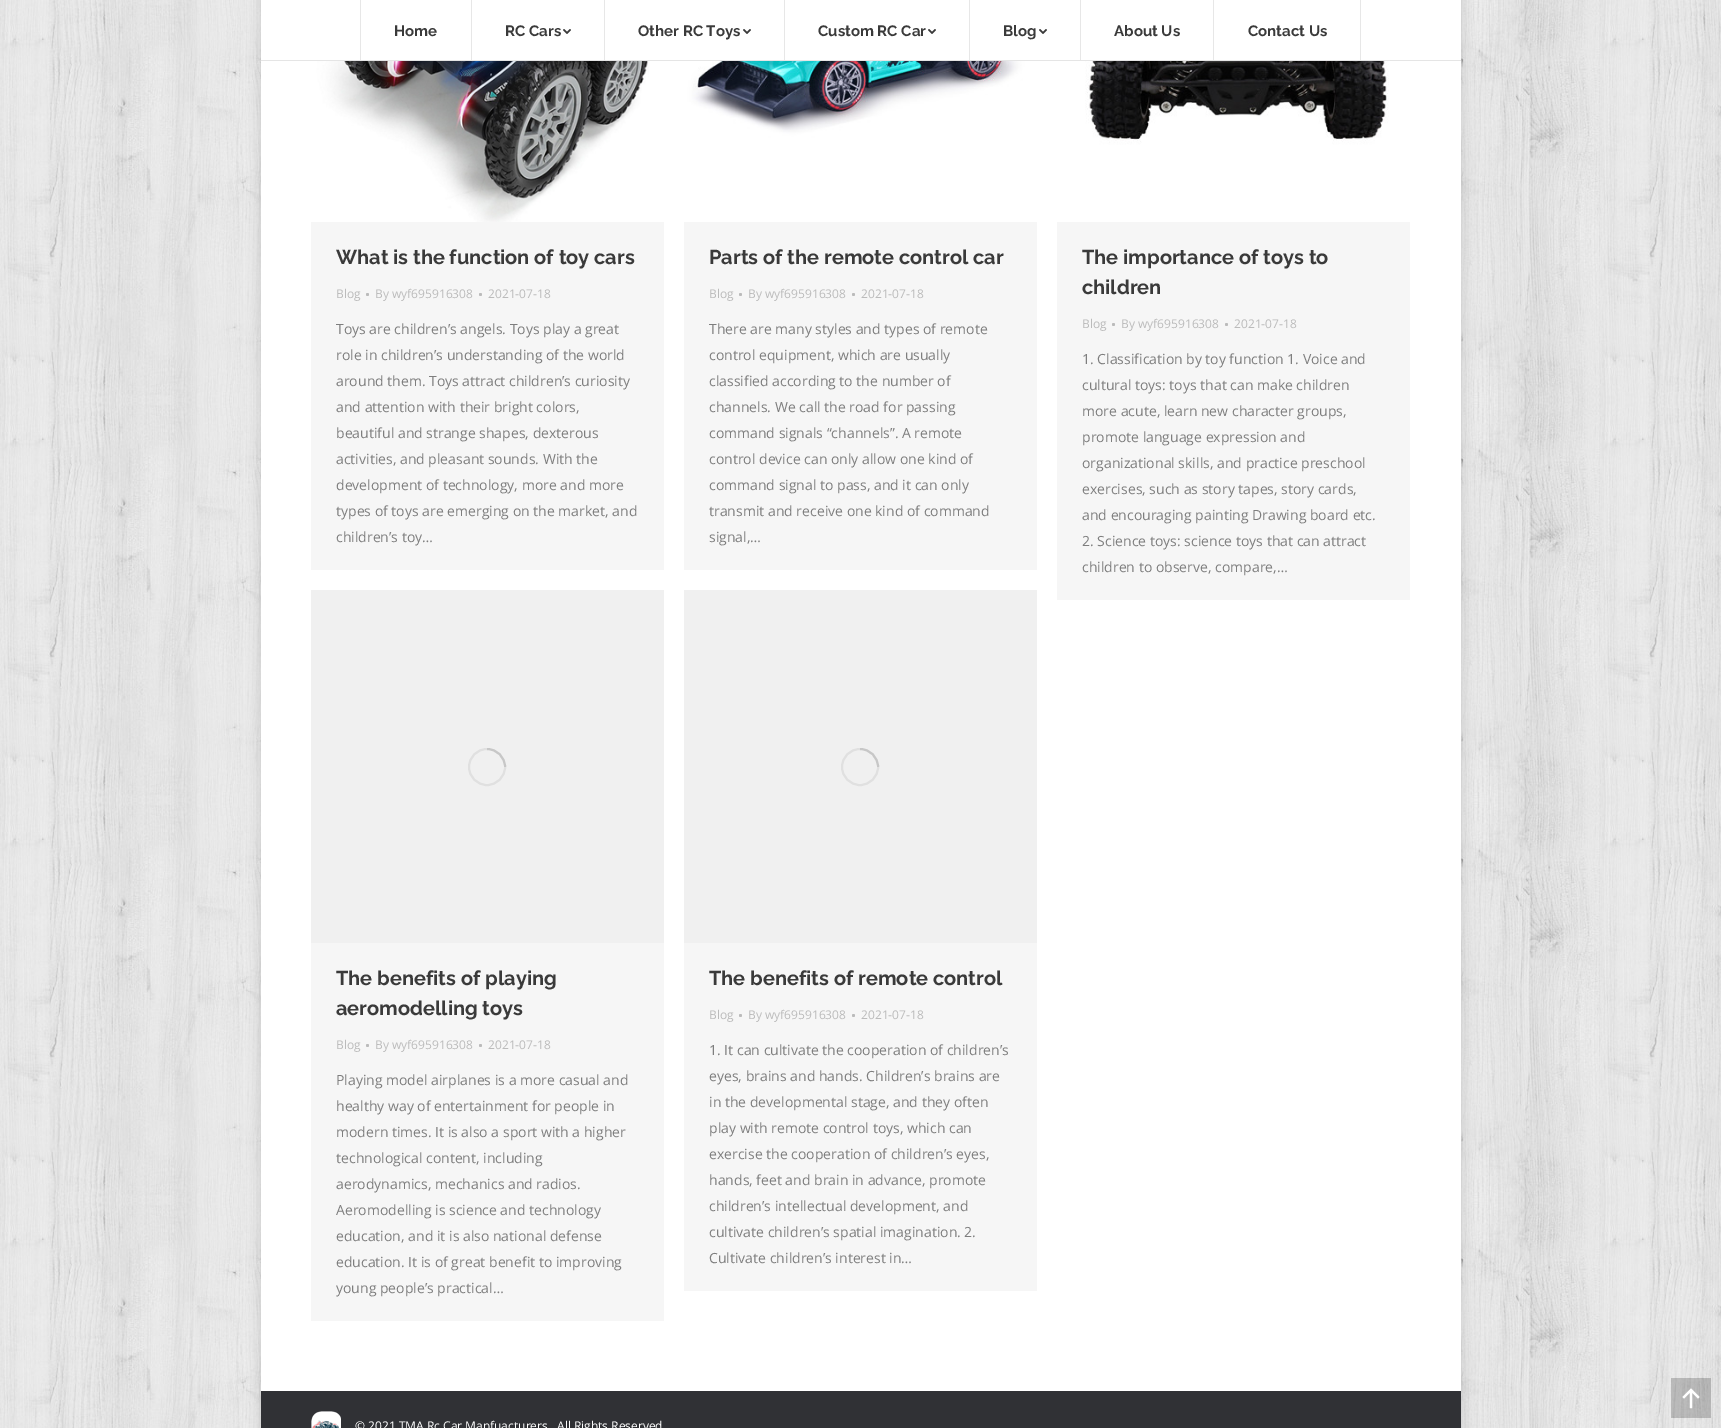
%!PS
<< /PageSize [1721 1428] /PageUsesTransparency true >> setpagedevice
/alpha { dup .setfillconstantalpha .setstrokeconstantalpha } def
/roundrect { 5 dict begin { /r /h /w /y /x } { exch def } forall
  x r add y moveto x w add y 2 copy h add r arct x w add y h add x 1 index r arct
  x y h add x y r arct x y 2 copy exch w add exch r arct closepath end } def
/shadow { 12 dict begin { /a /b /q /h /w /y /x } { exch def } forall gsave /was 0 def
  9 -2 -9 { dup b mul 4 div /e exch def 1 sub .425 mul 2.718 exch exp 1 add a .99 .min exch div /now exch def
    1 1 now sub 1 was sub div sub alpha /was now def
    w h .min e 2 mul add 0 gt { x e sub y e sub w e 2 mul add h e 2 mul add
      q e add b .6 mul add w h .min 2 div e add .min 0 .max roundrect fill } if } for grestore end } def
/picture { 5 dict begin { /h /w /y /x /name } { exch def } forall
  gsave x y translate w h scale
  w h 8 [w 0 0 h 0 0] name (r) file false 3 colorimage grestore end } def
0 .pushpdf14devicefilter
0 1428 translate 1 -1 scale
4 setmiterlimit
1 setgray
0 0 1721 1428 rectfill
(img1.rgb) 0 0 1721 1428 picture
0 setgray
261 -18 1200 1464 0 6 0.15 shadow
1 setgray
261 0 1200 60 rectfill
0.898 setgray
261 60 1200 1 rectfill
0.906 setgray
360 0 1 60 rectfill
/Raleway-Bold [15 0 0 -15 0 0] selectfont
0.227 setgray
394 36 moveto (Home) show
0.906 setgray
471 0 1 60 rectfill
0.227 setgray
505 36 moveto (RC Cars) show
(img2.rgb) 563 29 8 5 picture
0.906 setgray
604 0 1 60 rectfill
0.227 setgray
638 36 moveto (Other RC Toys) show
(img2.rgb) 743 29 8 5 picture
0.906 setgray
784 0 1 60 rectfill
0.227 setgray
818 36 moveto (Custom RC Car) show
(img2.rgb) 928 29 8 5 picture
0.906 setgray
969 0 1 60 rectfill
0.227 setgray
1003 36 moveto (Blog) show
(img2.rgb) 1039 29 8 5 picture
0.906 setgray
1080 0 1 60 rectfill
0.227 setgray
1114 36 moveto (About Us) show
0.906 setgray
1213 0 1 60 rectfill
0.227 setgray
1248 36 moveto (Contact Us) show
0.906 setgray
1360 0 1 60 rectfill
1 setgray
261 61 1200 1330 rectfill
0.965 setgray
311 222 353 348 rectfill
(img3.rgb) 311 61 353 161 picture
/Raleway-Bold [20 0 0 -20 0 0] selectfont
0.227 setgray
336 264 moveto (What is the function of toy cars) show
/OpenSans-Regular [12 0 0 -12 0 0] selectfont
0.733 setgray
336 298 moveto (Blog) show
newpath 367.5 294.5 1.5 0 360 arc closepath fill
375 298 moveto (By wyf695916308) show
newpath 480.5 294.5 1.5 0 360 arc closepath fill
488 298 moveto (2021-07-18) show
/OpenSans-Regular [14 0 0 -14 0 0] selectfont
0.494 setgray
336 334 moveto (Toys are children’s angels. Toys play a great) show
336 360 moveto (role in children’s understanding of the world) show
336 386 moveto (around them. Toys attract children’s curiosity) show
336 412 moveto (and attention with their bright colors,) show
336 438 moveto (beautiful and strange shapes, dexterous) show
336 464 moveto (activities, and pleasant sounds. With the) show
336 490 moveto (development of technology, more and more) show
336 516 moveto (types of toys are emerging on the market, and) show
336 542 moveto (children’s toy…) show
0.965 setgray
684 222 353 348 rectfill
(img4.rgb) 684 61 353 161 picture
/Raleway-Bold [20 0 0 -20 0 0] selectfont
0.227 setgray
709 264 moveto (Parts of the remote control car) show
/OpenSans-Regular [12 0 0 -12 0 0] selectfont
0.733 setgray
709 298 moveto (Blog) show
newpath 740.5 294.5 1.5 0 360 arc closepath fill
748 298 moveto (By wyf695916308) show
newpath 853.5 294.5 1.5 0 360 arc closepath fill
861 298 moveto (2021-07-18) show
/OpenSans-Regular [14 0 0 -14 0 0] selectfont
0.494 setgray
709 334 moveto (There are many styles and types of remote) show
709 360 moveto (control equipment, which are usually) show
709 386 moveto (classified according to the number of) show
709 412 moveto (channels. We call the road for passing) show
709 438 moveto (command signals “channels”. A remote) show
709 464 moveto (control device can only allow one kind of) show
709 490 moveto (command signal to pass, and it can only) show
709 516 moveto (transmit and receive one kind of command) show
709 542 moveto (signal,…) show
0.965 setgray
1057 222 353 378 rectfill
(img5.rgb) 1057 61 353 161 picture
/Raleway-Bold [20 0 0 -20 0 0] selectfont
0.227 setgray
1082 264 moveto (The importance of toys to) show
1082 294 moveto (children) show
/OpenSans-Regular [12 0 0 -12 0 0] selectfont
0.733 setgray
1082 328 moveto (Blog) show
newpath 1113.5 324.5 1.5 0 360 arc closepath fill
1121 328 moveto (By wyf695916308) show
newpath 1226.5 324.5 1.5 0 360 arc closepath fill
1234 328 moveto (2021-07-18) show
/OpenSans-Regular [14 0 0 -14 0 0] selectfont
0.494 setgray
1082 364 moveto (1. Classification by toy function 1. Voice and) show
1082 390 moveto (cultural toys: toys that can make children) show
1082 416 moveto (more acute, learn new character groups,) show
1082 442 moveto (promote language expression and) show
1082 468 moveto (organizational skills, and practice preschool) show
1082 494 moveto (exercises, such as story tapes, story cards,) show
1082 520 moveto (and encouraging painting Drawing board etc.) show
1082 546 moveto (2. Science toys: science toys that can attract) show
1082 572 moveto (children to observe, compare,…) show
0.965 setgray
311 943 353 378 rectfill
0.941 setgray
311 590 353 353 rectfill
0.878 setgray
2 setlinewidth
newpath 487 767 18 0 360 arc closepath stroke
0.25 alpha
0.494 setgray
newpath 505 767 moveto 505 757 497 749 487 749 curveto stroke
/Raleway-Bold [20 0 0 -20 0 0] selectfont
1 alpha
0.227 setgray
336 985 moveto (The benefits of playing) show
336 1015 moveto (aeromodelling toys) show
/OpenSans-Regular [12 0 0 -12 0 0] selectfont
0.733 setgray
336 1049 moveto (Blog) show
newpath 367.5 1045.5 1.5 0 360 arc closepath fill
375 1049 moveto (By wyf695916308) show
newpath 480.5 1045.5 1.5 0 360 arc closepath fill
488 1049 moveto (2021-07-18) show
/OpenSans-Regular [14 0 0 -14 0 0] selectfont
0.494 setgray
336 1085 moveto (Playing model airplanes is a more casual and) show
336 1111 moveto (healthy way of entertainment for people in) show
336 1137 moveto (modern times. It is also a sport with a higher) show
336 1163 moveto (technological content, including) show
336 1189 moveto (aerodynamics, mechanics and radios.) show
336 1215 moveto (Aeromodelling is science and technology) show
336 1241 moveto (education, and it is also national defense) show
336 1267 moveto (education. It is of great benefit to improving) show
336 1293 moveto (young people’s practical…) show
0.965 setgray
684 943 353 348 rectfill
0.941 setgray
684 590 353 353 rectfill
0.878 setgray
newpath 860 767 18 0 360 arc closepath stroke
0.25 alpha
0.494 setgray
newpath 878 767 moveto 878 757 870 749 860 749 curveto stroke
/Raleway-Bold [20 0 0 -20 0 0] selectfont
1 alpha
0.227 setgray
709 985 moveto (The benefits of remote control) show
/OpenSans-Regular [12 0 0 -12 0 0] selectfont
0.733 setgray
709 1019 moveto (Blog) show
newpath 740.5 1015.5 1.5 0 360 arc closepath fill
748 1019 moveto (By wyf695916308) show
newpath 853.5 1015.5 1.5 0 360 arc closepath fill
861 1019 moveto (2021-07-18) show
/OpenSans-Regular [14 0 0 -14 0 0] selectfont
0.494 setgray
709 1055 moveto (1. It can cultivate the cooperation of children’s) show
709 1081 moveto (eyes, brains and hands. Children’s brains are) show
709 1107 moveto (in the developmental stage, and they often) show
709 1133 moveto (play with remote control toys, which can) show
709 1159 moveto (exercise the cooperation of children’s eyes,) show
709 1185 moveto (hands, feet and brain in advance, promote) show
709 1211 moveto (children’s intellectual development, and) show
709 1237 moveto (cultivate children’s spatial imagination. 2.) show
709 1263 moveto (Cultivate children’s interest in…) show
0.2 alpha
0 setgray
1671 1378 40 40 rectfill
1 alpha
(img6.rgb) 1682 1388 18 21 picture
0.188 0.192 0.208 setrgbcolor
261 1391 1200 37 rectfill
(img7.rgb) 311 1411 30 17 picture
/OpenSans-Regular [12 0 0 -12 0 0] selectfont
1 setgray
355 1430 moveto (© 2021 TMA Rc Car Manfuacturers) show
557 1430 moveto (All Rights Reserved) show
.poppdf14devicefilter showpage
